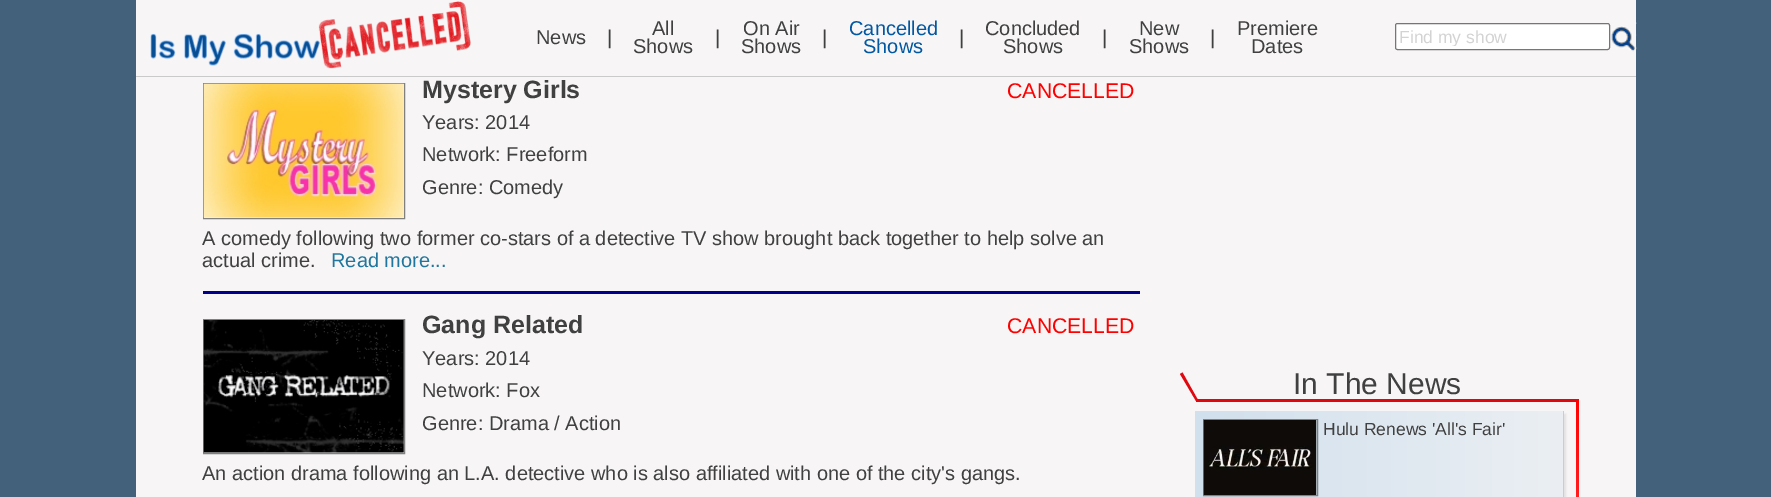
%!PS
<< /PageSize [1771 497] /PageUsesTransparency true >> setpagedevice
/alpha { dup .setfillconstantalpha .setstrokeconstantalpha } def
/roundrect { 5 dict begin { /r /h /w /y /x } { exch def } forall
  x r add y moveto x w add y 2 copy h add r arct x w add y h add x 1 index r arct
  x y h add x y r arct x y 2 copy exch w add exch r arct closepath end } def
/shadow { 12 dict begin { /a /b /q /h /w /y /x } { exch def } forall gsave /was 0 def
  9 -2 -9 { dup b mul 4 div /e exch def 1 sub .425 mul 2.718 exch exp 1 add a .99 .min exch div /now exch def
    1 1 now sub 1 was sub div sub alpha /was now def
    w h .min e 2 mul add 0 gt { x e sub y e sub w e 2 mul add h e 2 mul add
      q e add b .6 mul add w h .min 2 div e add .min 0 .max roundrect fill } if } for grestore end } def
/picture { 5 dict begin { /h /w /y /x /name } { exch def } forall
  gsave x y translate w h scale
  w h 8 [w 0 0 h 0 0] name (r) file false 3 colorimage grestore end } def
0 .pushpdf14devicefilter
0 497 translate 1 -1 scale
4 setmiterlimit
0.263 0.38 0.478 setrgbcolor
0 0 1771 497 rectfill
0.969 0.961 0.961 setrgbcolor
136 0 1500 497 rectfill
(img1.rgb) 150 1 321 68 picture
/LiberationSans-Regular [20 0 0 -20 0 0] selectfont
0.251 setgray
536 44 moveto (News) show
607 44 moveto (|) show
652 35 moveto (All) show
633 53 moveto (Shows) show
715 44 moveto (|) show
743 35 moveto (On Air) show
741 53 moveto (Shows) show
822 44 moveto (|) show
0 0.341 0.635 setrgbcolor
849 35 moveto (Cancelled) show
863 53 moveto (Shows) show
0.251 setgray
959 44 moveto (|) show
985 35 moveto (Concluded) show
1003 53 moveto (Shows) show
1102 44 moveto (|) show
1139 35 moveto (New) show
1129 53 moveto (Shows) show
1210 44 moveto (|) show
1237 35 moveto (Premiere) show
1251 53 moveto (Dates) show
1 setgray
1395.5 23.5 214 26 2 roundrect gsave fill grestore
0.463 setgray
stroke
gsave
1400 26 200 20 rectclip
/LiberationSans-Regular [17.5 0 0 -17.5 0 0] selectfont
0.827 setgray
1399 43 moveto (Find my show) show
grestore
(img2.rgb) 1611 22 26 30 picture
0.792 setgray
136 76 1500 1 rectfill
0 0 0.545 setrgbcolor
203 291 937 3 rectfill
0.502 setgray
203.5 83.5 201 135 rectstroke
(img3.rgb) 203 83 201 135 picture
/LiberationSans-Bold [25 0 0 -25 0 0] selectfont
0.251 setgray
422 98 moveto (Mystery Girls) show
/LiberationSans-Regular [21.25 0 0 -21.25 0 0] selectfont
1 0 0 setrgbcolor
1007 98 moveto (CANCELLED) show
/LiberationSans-Regular [20 0 0 -20 0 0] selectfont
0.251 setgray
422 129 moveto (Years: 2014) show
422 161 moveto (Network: Freeform) show
422 194 moveto (Genre: Comedy) show
202 245 moveto (A comedy following two former co-stars of a detective TV show brought back together to help solve an) show
202 267 moveto (actual crime.) show
0.125 0.463 0.612 setrgbcolor
331 267 moveto (Read more...) show
0.502 setgray
203.5 319.5 201 134 rectstroke
(img4.rgb) 203 320 201 133 picture
/LiberationSans-Bold [25 0 0 -25 0 0] selectfont
0.251 setgray
422 333 moveto (Gang Related) show
/LiberationSans-Regular [21.25 0 0 -21.25 0 0] selectfont
1 0 0 setrgbcolor
1007 333 moveto (CANCELLED) show
/LiberationSans-Regular [20 0 0 -20 0 0] selectfont
0.251 setgray
422 365 moveto (Years: 2014) show
422 397 moveto (Network: Fox) show
422 430 moveto (Genre: Drama / Action) show
202 480 moveto (An action drama following an L.A. detective who is also affiliated with one of the city's gangs.) show
0.878 0.027 0.059 setrgbcolor
1196 399 382 3 rectfill
newpath 1196 401 moveto 1180 374 lineto 1182.5 372.5 lineto 1198 400 lineto closepath fill
/LiberationSans-Regular [30 0 0 -30 0 0] selectfont
0.251 setgray
1293 394 moveto (In The News) show
0.8 setgray
1198 414 368 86 0 1 0.5 shadow
gsave newpath 1195 411 moveto 1563 411 lineto 1563 497 lineto 1195 497 lineto closepath clip newpath
<< /ShadingType 2 /ColorSpace /DeviceRGB /Coords [1195 458 1563 458] /Extend [true true] /Function << /FunctionType 2 /Domain [0 1] /C0 [0.82 0.878 0.929] /C1 [0.922 0.937 0.953] /N 1 >> >> shfill grestore
1563 411 1 86 rectfill
0.502 setgray
1203.5 419.5 114 76 rectstroke
(img5.rgb) 1203 420 114 75 picture
/LiberationSans-Regular [17.5 0 0 -17.5 0 0] selectfont
0.251 setgray
1323 435 moveto (Hulu Renews 'All's Fair') show
gsave newpath 1576 399 moveto 1579 399 lineto 1579 497 lineto 1576 497 lineto closepath clip newpath
<< /ShadingType 2 /ColorSpace /DeviceRGB /Coords [1578 399 1578 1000] /Extend [true true] /Function << /FunctionType 2 /Domain [0 1] /C0 [1 0 0] /C1 [1 0.753 0.796] /N 1 >> >> shfill grestore
.poppdf14devicefilter showpage
